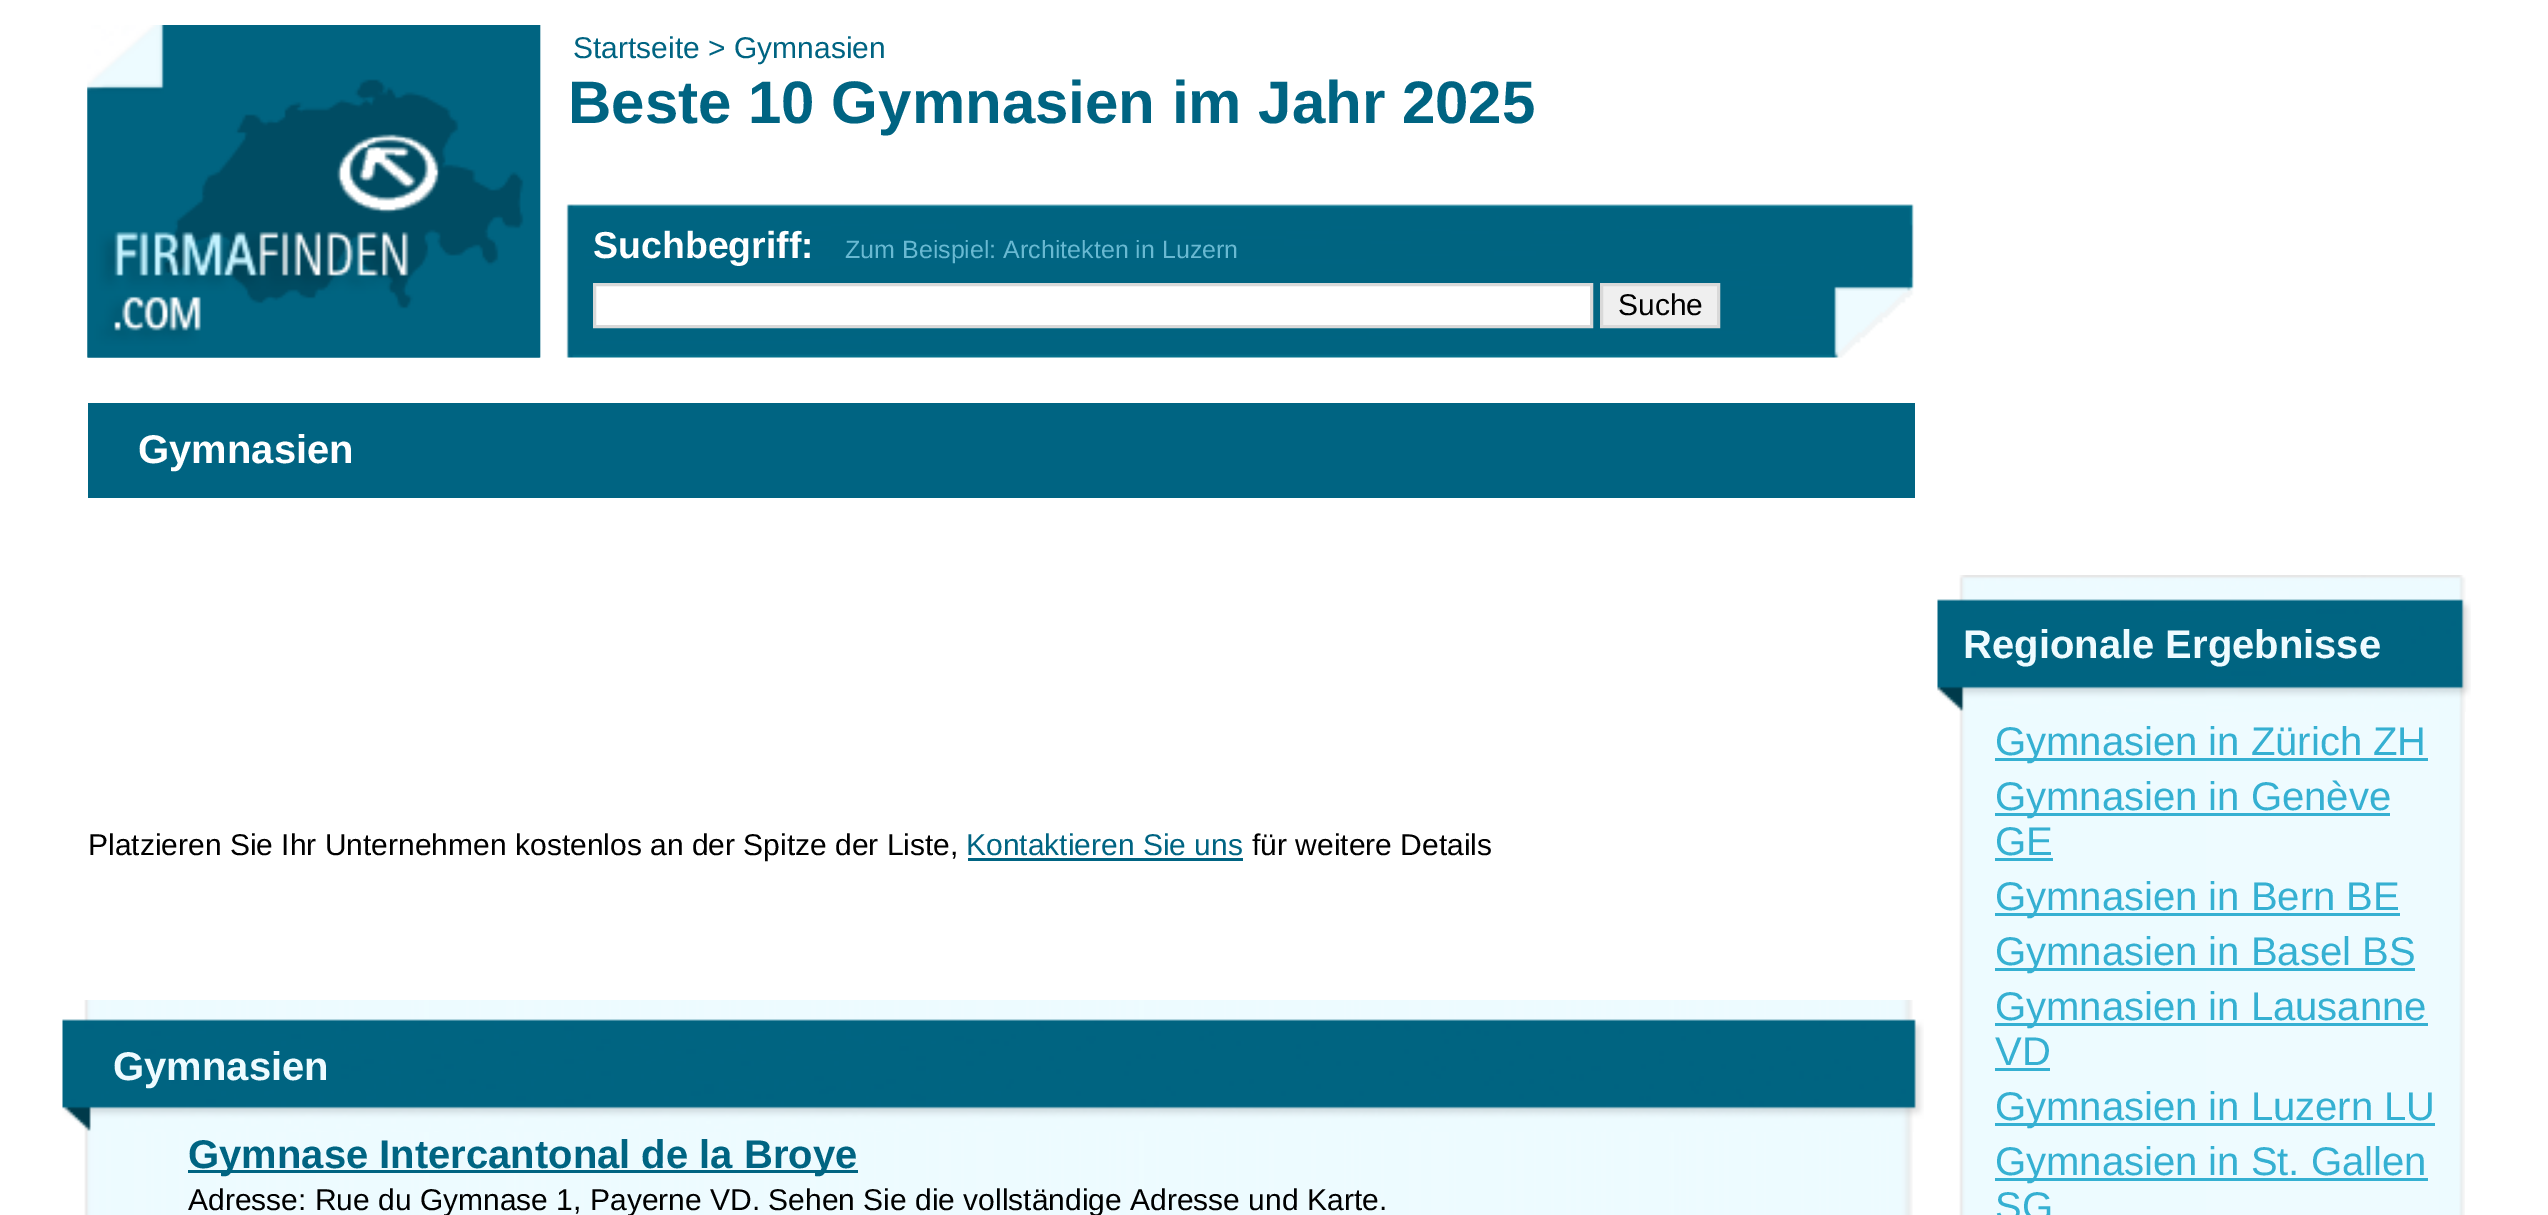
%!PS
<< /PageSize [2548 1215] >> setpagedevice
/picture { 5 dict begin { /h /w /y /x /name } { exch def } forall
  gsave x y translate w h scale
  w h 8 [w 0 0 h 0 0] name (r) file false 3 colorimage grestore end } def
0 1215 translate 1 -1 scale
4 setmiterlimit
1 setgray
0 0 2548 1215 rectfill
(img1.rgb) 87 25 1827 333 picture
(img2.rgb) 87 25 453 333 picture
/LiberationSans-Regular [30 0 0 -30 0 0] selectfont
0 0.392 0.51 setrgbcolor
573 58 moveto (Startseite > Gymnasien) show
/LiberationSans-Bold [60 0 0 -60 0 0] selectfont
568 123 moveto (Beste 10 Gymnasien im Jahr 2025) show
/LiberationSans-Bold [37.5 0 0 -37.5 0 0] selectfont
1 setgray
593 258 moveto (Suchbegriff:) show
/LiberationSans-Regular [25 0 0 -25 0 0] selectfont
0.412 0.725 0.824 setrgbcolor
845 258 moveto (Zum Beispiel: Architekten in Luzern) show
1 setgray
newpath 594.5 284.5 moveto 1591.5 284.5 lineto 1591.5 326.5 lineto 594.5 326.5 lineto closepath gsave fill grestore
0.851 setgray
3 setlinewidth
stroke
0.937 setgray
newpath 1601.5 284.5 moveto 1718.5 284.5 lineto 1718.5 326.5 lineto 1601.5 326.5 lineto closepath gsave fill grestore
0.851 setgray
stroke
/LiberationSans-Regular [30 0 0 -30 0 0] selectfont
0 setgray
1618 315 moveto (Suche) show
0 0.392 0.51 setrgbcolor
88 403 1827 95 rectfill
/LiberationSans-Bold [40 0 0 -40 0 0] selectfont
1 setgray
138 463 moveto (Gymnasien) show
/LiberationSans-Regular [30 0 0 -30 0 0] selectfont
0 setgray
88 855 moveto (Platzieren Sie Ihr Unternehmen kostenlos an der Spitze der Liste,) show
0 0.392 0.51 setrgbcolor
966 855 moveto (Kontaktieren Sie uns) show
968 858 275 3 rectfill
0 setgray
1252 855 moveto (für weitere Details) show
(img3.rgb) 84 1000 1829 215 picture
(img4.rgb) 62 1019 1862 113 picture
/LiberationSans-Bold [40 0 0 -40 0 0] selectfont
0.933 0.984 1 setrgbcolor
113 1080 moveto (Gymnasien) show
0 0.392 0.51 setrgbcolor
188 1170 670 3 rectfill
188 1168 moveto (Gymnase Intercantonal de la Broye) show
/LiberationSans-Regular [30 0 0 -30 0 0] selectfont
0 setgray
188 1210 moveto (Adresse: Rue du Gymnase 1, Payerne VD. Sehen Sie die vollständige Adresse und Karte.) show
(img5.rgb) 1959 712 506 503 picture
(img6.rgb) 1937 575 534 137 picture
/LiberationSans-Bold [40 0 0 -40 0 0] selectfont
0.933 0.984 1 setrgbcolor
1963 658 moveto (Regionale Ergebnisse) show
0.208 0.69 0.824 setrgbcolor
1995 758 433 3 rectfill
/LiberationSans-Regular [40 0 0 -40 0 0] selectfont
1995 755 moveto (Gymnasien in Zürich ZH) show
1995 813 395 3 rectfill
1995 810 moveto (Gymnasien in Genève) show
1995 855 moveto (GE) show
1995 858 58 3 rectfill
1995 913 405 3 rectfill
1995 910 moveto (Gymnasien in Bern BE) show
1995 968 420 3 rectfill
1995 965 moveto (Gymnasien in Basel BS) show
1995 1023 433 3 rectfill
1995 1020 moveto (Gymnasien in Lausanne) show
1995 1065 moveto (VD) show
1995 1068 55 3 rectfill
1995 1123 440 3 rectfill
1995 1120 moveto (Gymnasien in Luzern LU) show
1995 1178 433 3 rectfill
1995 1175 moveto (Gymnasien in St. Gallen) show
1995 1220 moveto (SG) show
showpage
